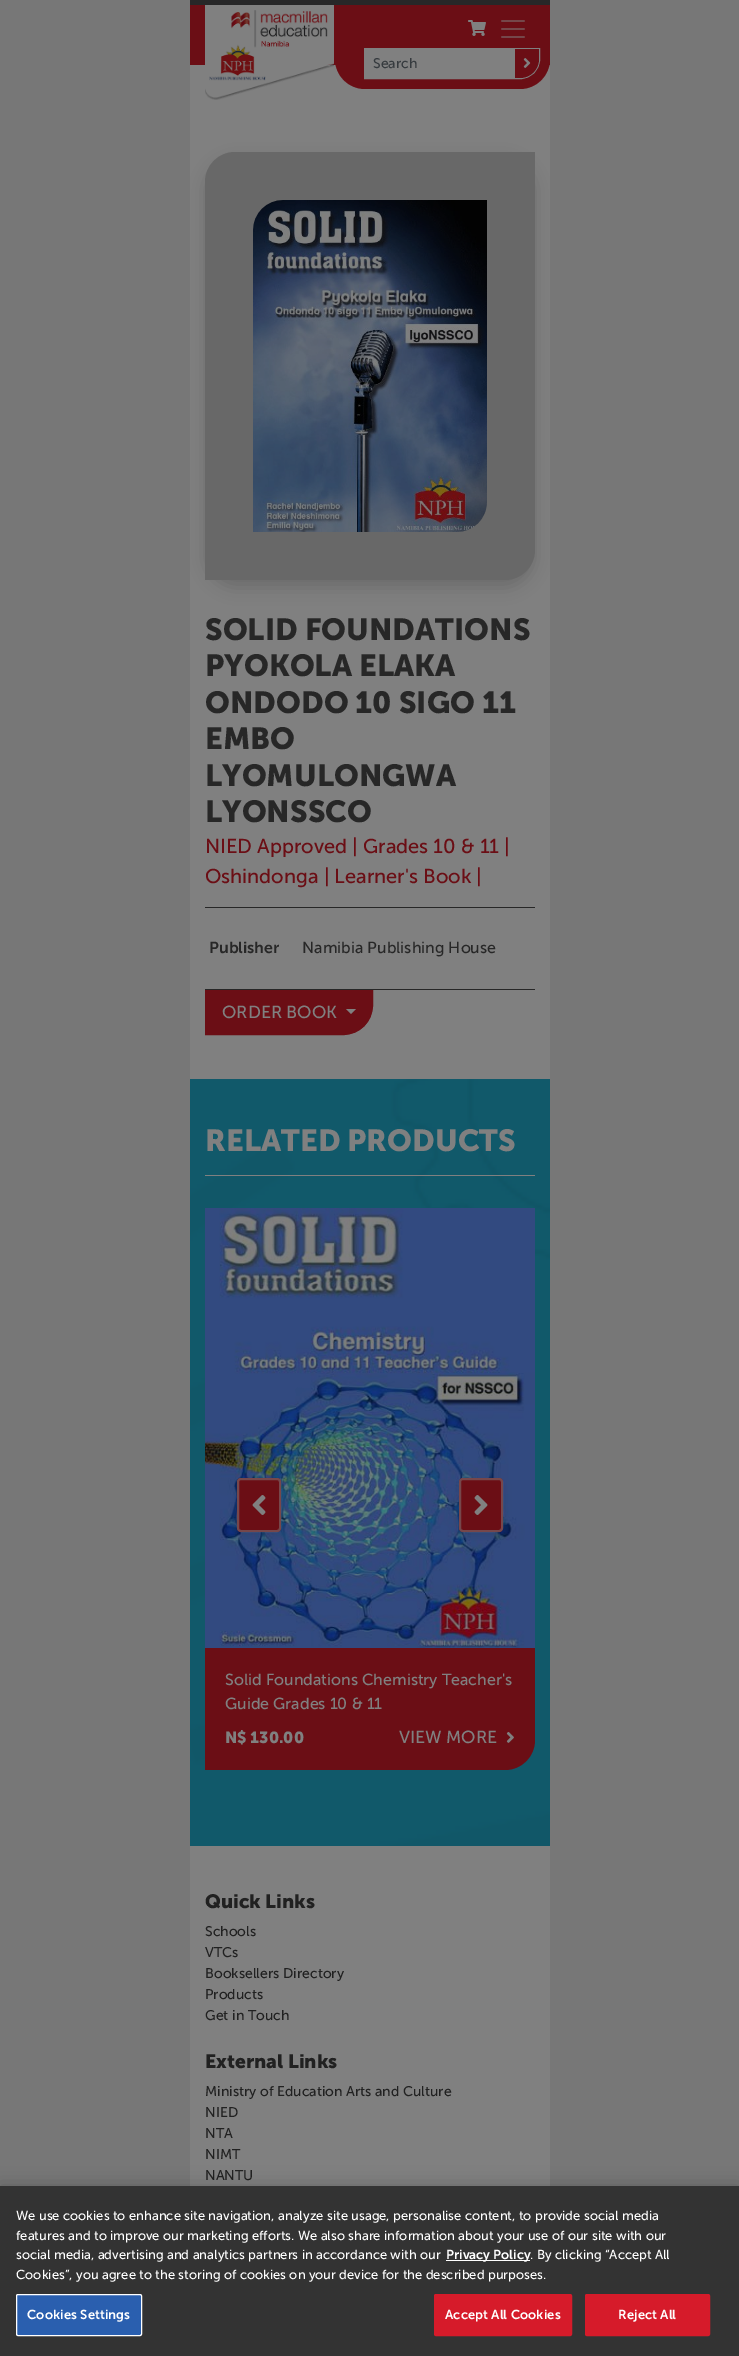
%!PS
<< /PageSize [739 2356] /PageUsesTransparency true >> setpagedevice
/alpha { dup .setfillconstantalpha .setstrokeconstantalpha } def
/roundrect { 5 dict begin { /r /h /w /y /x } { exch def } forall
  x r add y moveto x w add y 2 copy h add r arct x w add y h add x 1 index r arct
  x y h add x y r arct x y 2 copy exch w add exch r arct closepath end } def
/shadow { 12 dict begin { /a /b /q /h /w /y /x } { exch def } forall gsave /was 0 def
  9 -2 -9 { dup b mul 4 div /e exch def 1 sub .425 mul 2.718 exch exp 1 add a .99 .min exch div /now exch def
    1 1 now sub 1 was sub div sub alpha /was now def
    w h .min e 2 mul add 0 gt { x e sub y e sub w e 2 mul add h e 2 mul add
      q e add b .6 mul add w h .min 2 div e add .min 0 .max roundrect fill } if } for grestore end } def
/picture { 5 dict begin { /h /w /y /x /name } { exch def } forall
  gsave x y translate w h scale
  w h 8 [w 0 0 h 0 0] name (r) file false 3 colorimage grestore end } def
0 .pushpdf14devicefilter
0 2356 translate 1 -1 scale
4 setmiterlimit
0.467 setgray
0 0 739 2356 rectfill
0.42 0.055 0.082 setrgbcolor
190 5 360 60 rectfill
0.153 0.153 0.157 setrgbcolor
190 0 360 5 rectfill
0.502 setgray
190 65 360 1014 rectfill
(img1.rgb) 205 5 129 95 picture
0.42 0.055 0.082 setrgbcolor
newpath 335 10 moveto 550 10 lineto 550 59 lineto 550 75.5 536.5 89 520 89 curveto 365 89 lineto 348.5 89 335 75.5 335 59 curveto closepath fill
(img2.rgb) 468 20 18 16 picture
(img3.rgb) 501 20 24 18 picture
0.502 setgray
newpath 364.5 48.5 moveto 539.5 48.5 lineto 539.5 59 lineto 539.5 70 531 78.5 520 78.5 curveto 364.5 78.5 lineto closepath gsave fill grestore
stroke
/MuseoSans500-Regular [14 0 0 -14 0 0] selectfont
0.212 0.231 0.247 setrgbcolor
373 68 moveto (Search) show
0.42 0.055 0.082 setrgbcolor
newpath 515 49 moveto 539 49 lineto 539 59 lineto 539 69.5 530.5 78 520 78 curveto 515 78 lineto closepath fill
(img4.rgb) 523 58 8 10 picture
0 setgray
205 160 330 428 30 8 0.15 shadow
0.408 setgray
newpath 235 152 moveto 535 152 lineto 535 550 lineto 535 566.5 521.5 580 505 580 curveto 205 580 lineto 205 182 lineto 205 165.5 218.5 152 235 152 curveto closepath fill
(img5.rgb) 253 200 234 332 picture
0.153 setgray
205 907 330 1 rectfill
/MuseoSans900-Bold [30.4 0 0 -30.4 0 0] selectfont
205 640 moveto (SOLID FOUNDATIONS) show
205 676 moveto (PYOKOLA ELAKA) show
205 713 moveto (ONDODO 10 SIGO 11) show
205 749 moveto (EMBO) show
205 786 moveto (LYOMULONGWA) show
205 822 moveto (LYONSSCO) show
/MuseoSans500-Regular [20 0 0 -20 0 0] selectfont
0.42 0.055 0.082 setrgbcolor
205 853 moveto (NIED Approved | Grades 10 & 11 |) show
205 883 moveto (Oshindonga | Learner's Book |) show
/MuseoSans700-SemiBold [16 0 0 -16 0 0] selectfont
0.153 setgray
209 953 moveto (Publisher) show
/MuseoSans500-Regular [16 0 0 -16 0 0] selectfont
302 953 moveto (Namibia Publishing House) show
205 989 330 1 rectfill
0.42 0.055 0.082 setrgbcolor
newpath 205.5 990.5 moveto 372.5 990.5 lineto 372.5 1005 lineto 372.5 1021.5 359.5 1034.5 343 1034.5 curveto 205.5 1034.5 lineto closepath gsave fill grestore
stroke
/MuseoSans500-Regular [17.5 0 0 -17.5 0 0] selectfont
0.502 setgray
222 1018 moveto (ORDER BOOK) show
newpath 346 1009 moveto 356 1009 lineto 351 1014 lineto closepath fill
(img6.rgb) 190 1079 360 767 picture
205 1175 330 1 rectfill
/MuseoSans900-Bold [30.4 0 0 -30.4 0 0] selectfont
205 1151 moveto (RELATED PRODUCTS) show
(img9.rgb) 205 1208 330 440 picture
0 setgray
237 1482 44 54 4 4 0.1 shadow
0.42 0.055 0.082 setrgbcolor
237 1478 44 54 4 roundrect fill
0.5 alpha
0.502 setgray
2 setlinewidth
238 1479 42 52 3 roundrect stroke
1 alpha
(img7.rgb) 252 1495 14 20 picture
0 setgray
459 1482 44 54 4 4 0.1 shadow
0.42 0.055 0.082 setrgbcolor
459 1478 44 54 4 roundrect fill
0.5 alpha
0.502 setgray
460 1479 42 52 3 roundrect stroke
1 alpha
(img8.rgb) 474 1495 14 20 picture
0.42 0.055 0.082 setrgbcolor
newpath 205 1648 moveto 535 1648 lineto 535 1740 lineto 535 1756.5 521.5 1770 505 1770 curveto 205 1770 lineto closepath fill
/MuseoSans500-Regular [16 0 0 -16 0 0] selectfont
0.502 setgray
225 1685 moveto (Solid Foundations Chemistry Teacher's) show
225 1709 moveto (Guide Grades 10 & 11) show
/MuseoSans900-Bold [16 0 0 -16 0 0] selectfont
225 1743 moveto (N$ 130.00) show
/MuseoSans500-Regular [17.5 0 0 -17.5 0 0] selectfont
399 1743 moveto (VIEW MORE) show
(img10.rgb) 506 1731 8 12 picture
190 1846 360 340 rectfill
/MuseoSans900-Bold [19.25 0 0 -19.25 0 0] selectfont
0.129 setgray
205 1908 moveto (Quick Links) show
/MuseoSans500-Regular [14 0 0 -14 0 0] selectfont
205 1936 moveto (Schools) show
205 1957 moveto (VTCs) show
205 1978 moveto (Booksellers Directory) show
205 1999 moveto (Products) show
205 2020 moveto (Get in Touch) show
/MuseoSans900-Bold [19.25 0 0 -19.25 0 0] selectfont
205 2068 moveto (External Links) show
/MuseoSans500-Regular [14 0 0 -14 0 0] selectfont
205 2096 moveto (Ministry of Education Arts and Culture) show
205 2117 moveto (NIED) show
205 2138 moveto (NTA) show
205 2159 moveto (NIMT) show
205 2180 moveto (NANTU) show
0 setgray
0 2186 739 170 0 9 0.2 shadow
0.2 setgray
0 2186 739 170 rectfill
/MuseoSans500-Regular [13 0 0 -13 0 0] selectfont
1 setgray
16 2220 moveto (We use cookies to enhance site navigation, analyze site usage, personalise content, to provide social media) show
16 2240 moveto (features and to improve our marketing efforts. We also share information about your use of our site with our) show
16 2259 moveto (social media, advertising and analytics partners in accordance with our) show
446 2260 84 1 rectfill
/MuseoSans700-SemiBold [13 0 0 -13 0 0] selectfont
446 2259 moveto (Privacy Policy) show
/MuseoSans500-Regular [13 0 0 -13 0 0] selectfont
530 2259 moveto (. By clicking “Accept All) show
16 2279 moveto (Cookies”, you agree to the storing of cookies on your device for the described purposes.) show
0.165 0.373 0.686 setrgbcolor
16.5 2294.5 125 41 1.5 roundrect gsave fill grestore
1 setgray
1 setlinewidth
stroke
/MuseoSans700-SemiBold [13 0 0 -13 0 0] selectfont
27 2319 moveto 0.1 0 (Cookies Settings) ashow
0.839 0.106 0.165 setrgbcolor
434.5 2294.5 137 41 1.5 roundrect gsave fill grestore
stroke
1 setgray
445 2319 moveto 0.1 0 (Accept All Cookies) ashow
0.839 0.106 0.165 setrgbcolor
585.5 2294.5 124 41 1.5 roundrect gsave fill grestore
stroke
1 setgray
618 2319 moveto 0.1 0 (Reject All) ashow
.poppdf14devicefilter showpage
